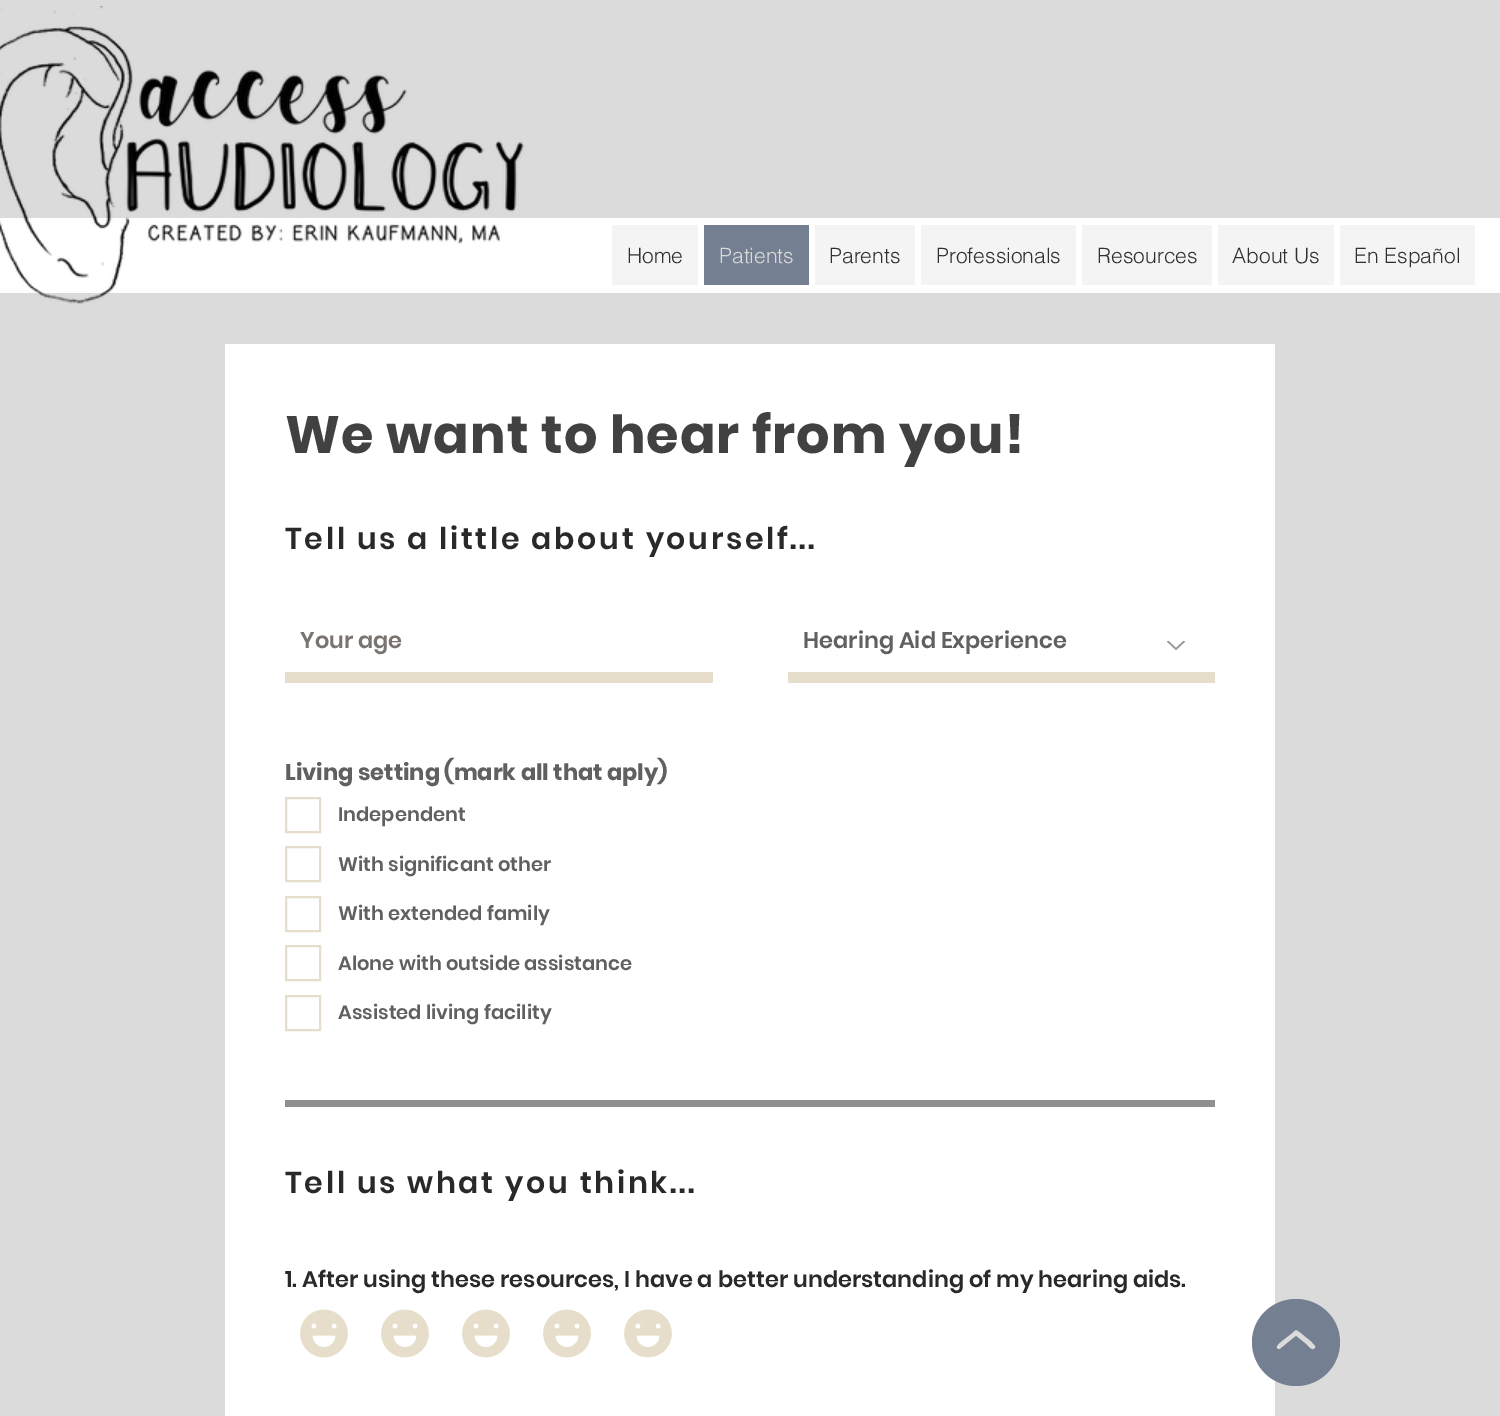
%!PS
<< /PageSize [1500 1416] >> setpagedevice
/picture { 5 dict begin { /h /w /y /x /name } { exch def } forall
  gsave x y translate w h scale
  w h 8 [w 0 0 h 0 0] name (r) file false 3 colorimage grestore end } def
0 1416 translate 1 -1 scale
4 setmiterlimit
0.859 setgray
0 0 1500 1416 rectfill
1 setgray
0 218 1500 75 rectfill
(img1.rgb) 0 6 524 299 picture
0.957 setgray
612 225 86 60 rectfill
/helvetica-Light [21 0 0 -21 0 0] selectfont
0.188 setgray
627 263 moveto (Home) show
0.455 0.502 0.573 setrgbcolor
704 225 105 60 rectfill
0.859 setgray
719 263 moveto (Patients) show
0.957 setgray
815 225 100 60 rectfill
0.188 setgray
829 263 moveto (Parents) show
0.957 setgray
921 225 155 60 rectfill
0.188 setgray
936 263 moveto (Professionals) show
0.957 setgray
1082 225 130 60 rectfill
0.188 setgray
1097 263 moveto (Resources) show
0.957 setgray
1218 225 116 60 rectfill
0.188 setgray
1232 263 moveto (About Us) show
0.957 setgray
1340 225 135 60 rectfill
0.188 setgray
1354 263 moveto (En Español) show
1 setgray
225 344 1050 1072 rectfill
/Poppins-Bold [52.5 0 0 -52.5 0 0] selectfont
0.255 setgray
285 453 moveto 1.05 0 (We want to hear from you!) ashow
/Poppins-SemiBold [30 0 0 -30 0 0] selectfont
0.161 setgray
285 549 moveto 2.7 0 (Tell us a little about yourself...) ashow
0.902 0.871 0.792 setrgbcolor
285 672 428 11 rectfill
/Poppins-SemiBold [22.5 0 0 -22.5 0 0] selectfont
0.478 0.451 0.435 setrgbcolor
300 648 moveto (Your age) show
0.902 0.871 0.792 setrgbcolor
788 672 427 11 rectfill
0.376 setgray
803 648 moveto (Hearing Aid Experience) show
(img2.rgb) 1167 641 18 9 picture
/Poppins-Bold [22.5 0 0 -22.5 0 0] selectfont
285 780 moveto (Living setting \(mark all that aply\)) show
0.902 0.871 0.792 setrgbcolor
2 setlinewidth
286 798 34 34 rectstroke
/Poppins-SemiBold [19.5 0 0 -19.5 0 0] selectfont
0.376 setgray
338 821 moveto (Independent) show
0.902 0.871 0.792 setrgbcolor
286 847 34 34 rectstroke
0.376 setgray
338 871 moveto (With significant other) show
0.902 0.871 0.792 setrgbcolor
286 897 34 34 rectstroke
0.376 setgray
338 920 moveto (With extended family) show
0.902 0.871 0.792 setrgbcolor
286 946 34 34 rectstroke
0.376 setgray
338 970 moveto (Alone with outside assistance) show
0.902 0.871 0.792 setrgbcolor
286 996 34 34 rectstroke
0.376 setgray
338 1019 moveto (Assisted living facility) show
0.561 setgray
285 1100 930 7 rectfill
/Poppins-SemiBold [30 0 0 -30 0 0] selectfont
0.161 setgray
285 1193 moveto 2.7 0 (Tell us what you think...) ashow
/Poppins-SemiBold [22.5 0 0 -22.5 0 0] selectfont
285 1287 moveto (1. After using these resources, I have a better understanding of my hearing aids.) show
(img3.rgb) 300 1309 48 49 picture
(img3.rgb) 381 1309 48 49 picture
(img3.rgb) 462 1309 48 49 picture
(img3.rgb) 543 1309 48 49 picture
(img3.rgb) 624 1309 48 49 picture
0.455 0.502 0.573 setrgbcolor
newpath 1296 1299 moveto 1272 1299 1252 1318 1252 1342 curveto 1252 1367 1272 1386 1296 1386 curveto 1320 1386 1340 1367 1340 1342 curveto 1340 1318 1320 1299 1296 1299 curveto closepath 1315 1348 moveto 1312 1352 1308 1346 1306 1344 curveto 1296 1336 lineto 1280 1349 lineto 1278 1349 lineto 1273 1347 1282 1341 1283 1340 curveto 1292 1333 lineto 1296 1329 1296 1329 1301 1333 curveto 1312 1342 lineto 1313 1344 1317 1346 1315 1348 curveto closepath fill
showpage
